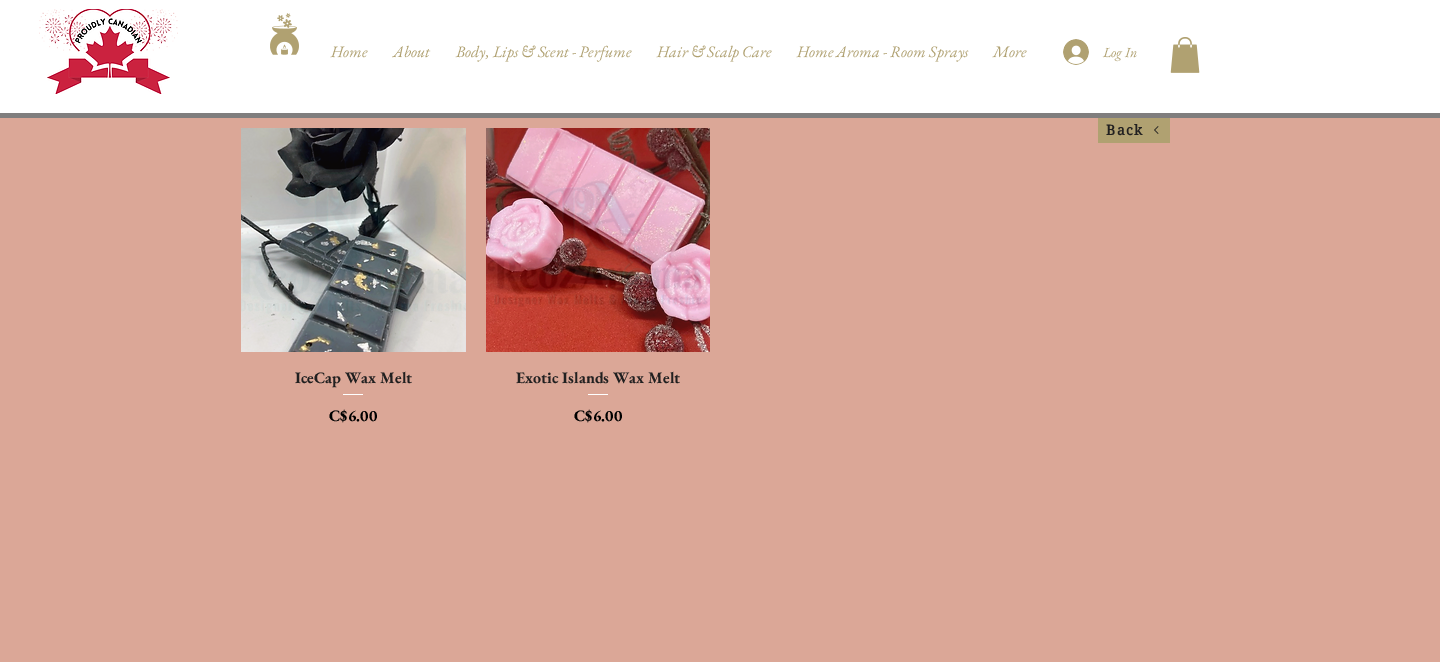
%!PS
<< /PageSize [1440 662] >> setpagedevice
/picture { 5 dict begin { /h /w /y /x /name } { exch def } forall
  gsave x y translate w h scale
  w h 8 [w 0 0 h 0 0] name (r) file false 3 colorimage grestore end } def
0 662 translate 1 -1 scale
4 setmiterlimit
0.859 0.655 0.592 setrgbcolor
0 0 1440 662 rectfill
1 setgray
0 0 1440 113 rectfill
0.502 0.494 0.494 setrgbcolor
0 113 1440 5 rectfill
(img1.rgb) 39 9 139 85 picture
(img2.rgb) 270 13 29 42 picture
/EBGaramond-Italic [16 0 0 -16 0 0] selectfont
0.69 0.631 0.443 setrgbcolor
331 57 moveto (Home) show
393 57 moveto (About) show
456 57 moveto (Body, Lips & Scent - Perfume) show
657 57 moveto (Hair & Scalp Care) show
797 57 moveto (Home Aroma - Room Sprays) show
993 57 moveto (More) show
(img3.rgb) 1063 39 26 26 picture
/EBGaramond-Italic [14 0 0 -14 0 0] selectfont
1103 57 moveto (Log In) show
(img4.rgb) 1170 37 30 36 picture
1098 118 72 25 rectfill
/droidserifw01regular-Bold [14 0 0 -14 0 0] selectfont
0.129 0.125 0.125 setrgbcolor
1106 135 moveto 1.5 0 (Back) ashow
(img5.rgb) 1154 126 5 8 picture
(img6.rgb) 241 128 225 224 picture
/EBGaramond-Bold [16 0 0 -16 0 0] selectfont
295 383 moveto (IceCap Wax Melt) show
1 setgray
343 394 20 1 rectfill
0 setgray
329 421 moveto (C$6.00) show
(img7.rgb) 486 128 224 224 picture
0.129 0.125 0.125 setrgbcolor
516 383 moveto (Exotic Islands Wax Melt) show
1 setgray
588 394 20 1 rectfill
0 setgray
574 421 moveto (C$6.00) show
showpage
